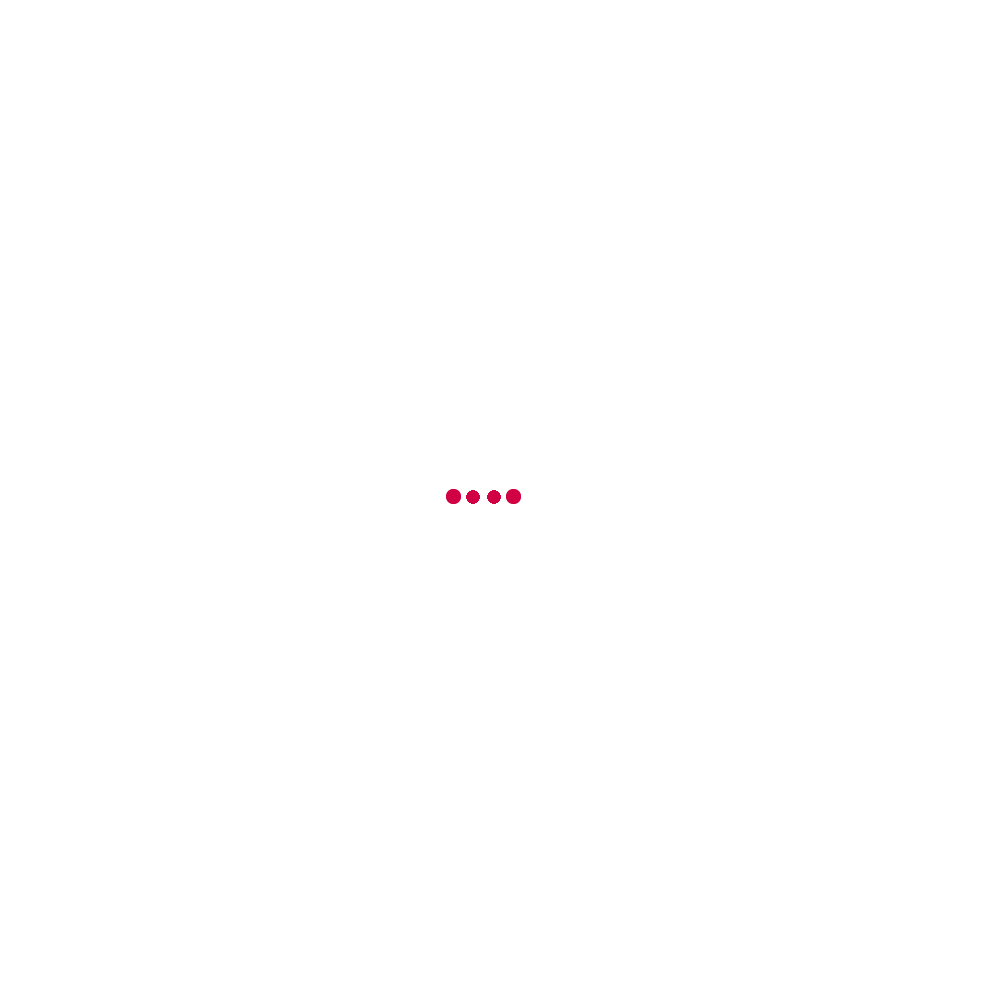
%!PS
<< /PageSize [992 992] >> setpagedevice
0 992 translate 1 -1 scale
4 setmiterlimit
1 setgray
0 0 992 992 rectfill
gsave newpath 487 490 moveto 501 490 lineto 501 504 lineto 487 504 lineto closepath clip newpath 494 497 translate 7.5 7.5 scale
<< /ShadingType 3 /ColorSpace /DeviceRGB /Coords [0 0 0 0 0 1] /Extend [true true] /Function << /FunctionType 3 /Domain [0 1] /Functions [<< /FunctionType 2 /Domain [0 1] /C0 [0.82 0 0.271] /C1 [0.82 0 0.271] /N 1 >> << /FunctionType 2 /Domain [0 1] /C0 [0.82 0 0.271] /C1 [1 1 1] /N 1 >>] /Bounds [0.95] /Encode [0 1 0 1] >> >> shfill grestore
gsave newpath 466 490 moveto 480 490 lineto 480 504 lineto 466 504 lineto closepath clip newpath 473 497 translate 7.5 7.5 scale
<< /ShadingType 3 /ColorSpace /DeviceRGB /Coords [0 0 0 0 0 1] /Extend [true true] /Function << /FunctionType 3 /Domain [0 1] /Functions [<< /FunctionType 2 /Domain [0 1] /C0 [0.82 0 0.271] /C1 [0.82 0 0.271] /N 1 >> << /FunctionType 2 /Domain [0 1] /C0 [0.82 0 0.271] /C1 [1 1 1] /N 1 >>] /Bounds [0.95] /Encode [0 1 0 1] >> >> shfill grestore
0.82 0 0.271 setrgbcolor
newpath 453.5 496.5 7.5 0 360 arc closepath fill
newpath 513.5 496.5 7.5 0 360 arc closepath fill
showpage
